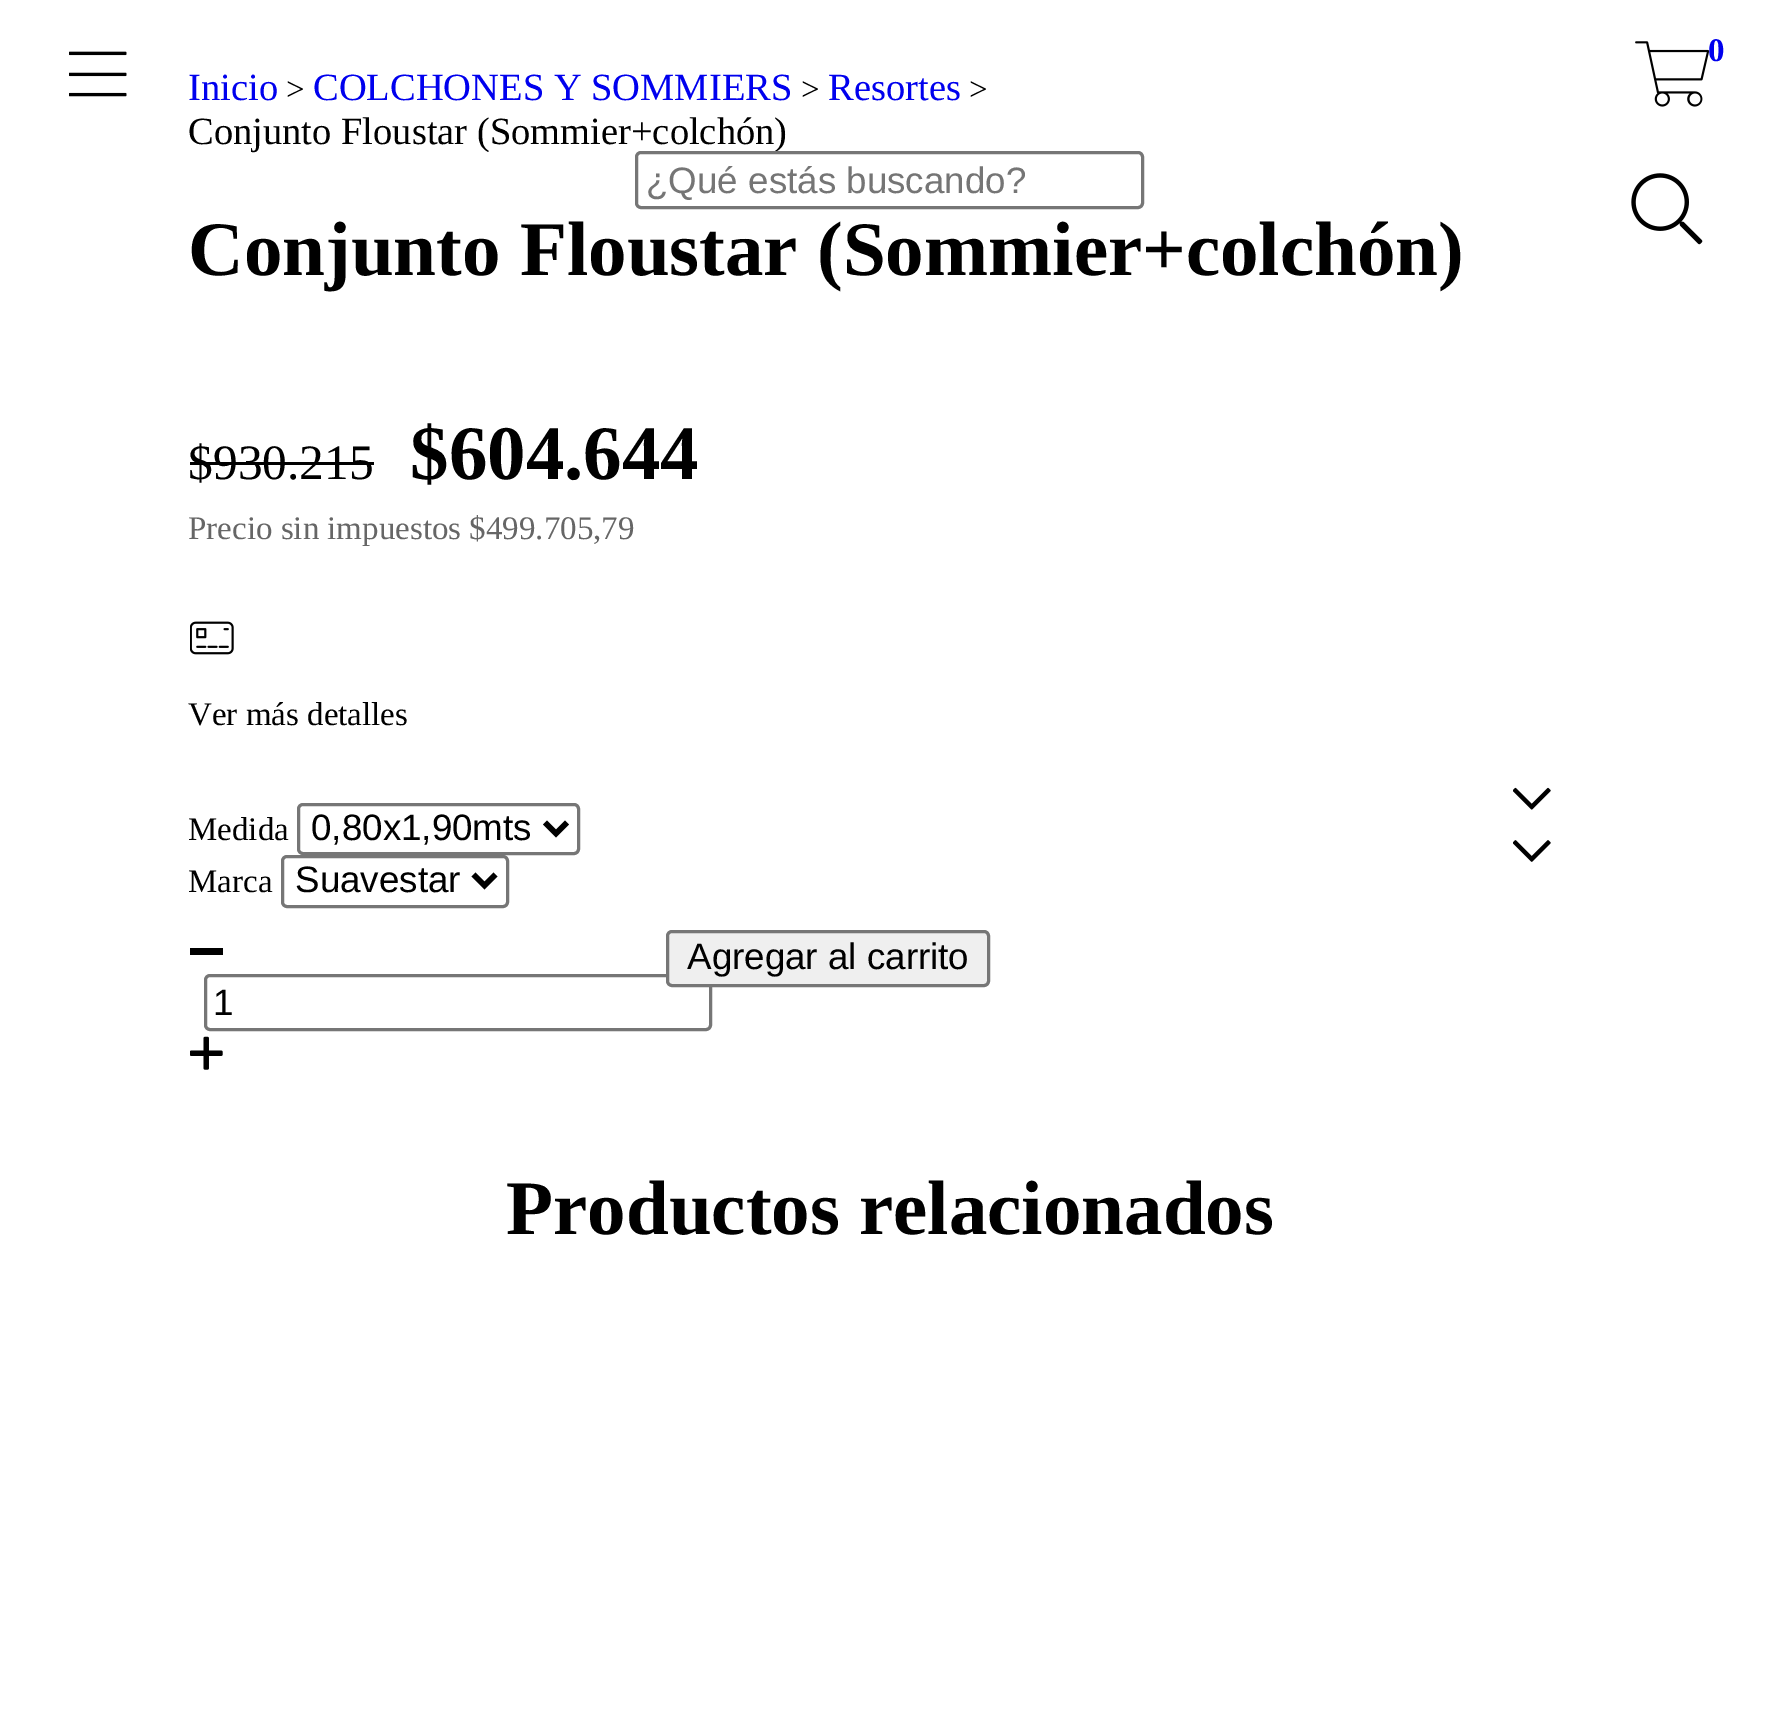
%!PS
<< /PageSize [1779 1727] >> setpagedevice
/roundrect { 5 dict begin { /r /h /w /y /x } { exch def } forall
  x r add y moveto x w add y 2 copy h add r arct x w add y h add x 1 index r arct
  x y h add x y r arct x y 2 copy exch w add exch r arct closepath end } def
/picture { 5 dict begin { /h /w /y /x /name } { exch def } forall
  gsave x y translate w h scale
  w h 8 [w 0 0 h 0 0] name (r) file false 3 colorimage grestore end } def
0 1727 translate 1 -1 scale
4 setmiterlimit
1 setgray
0 0 1779 1727 rectfill
(img1.rgb) 69 51 58 46 picture
(img2.rgb) 1635 41 75 66 picture
/LiberationSerif-Bold [33 0 0 -33 0 0] selectfont
0 0 0.933 setrgbcolor
1708 61 moveto (0) show
/LiberationSerif-Regular [38.5 0 0 -38.5 0 0] selectfont
0 setgray
188 144 moveto (Conjunto Floustar \(Sommier+colchón\)) show
1 setgray
636.5 152.5 506 55 4.5 roundrect gsave fill grestore
0.463 setgray
3 setlinewidth
stroke
/LiberationSans-Regular [36.75 0 0 -36.75 0 0] selectfont
0.459 setgray
646 193 moveto (¿Qué estás buscando?) show
(img3.rgb) 1631 173 72 72 picture
/LiberationSerif-Regular [38.5 0 0 -38.5 0 0] selectfont
0 0 0.933 setrgbcolor
188 100 moveto (Inicio) show
/LiberationSerif-Regular [33 0 0 -33 0 0] selectfont
0 setgray
286 100 moveto (>) show
/LiberationSerif-Regular [38.5 0 0 -38.5 0 0] selectfont
0 0 0.933 setrgbcolor
313 100 moveto (COLCHONES Y SOMMIERS) show
/LiberationSerif-Regular [33 0 0 -33 0 0] selectfont
0 setgray
801 100 moveto (>) show
/LiberationSerif-Regular [38.5 0 0 -38.5 0 0] selectfont
0 0 0.933 setrgbcolor
828 100 moveto (Resortes) show
/LiberationSerif-Regular [33 0 0 -33 0 0] selectfont
0 setgray
969 100 moveto (>) show
/LiberationSerif-Bold [77 0 0 -77 0 0] selectfont
188 275 moveto (Conjunto Floustar \(Sommier+colchón\)) show
/LiberationSerif-Regular [49.5 0 0 -49.5 0 0] selectfont
188 479 moveto ($930.215) show
190 462 184 3 rectfill
/LiberationSerif-Bold [77 0 0 -77 0 0] selectfont
410 479 moveto ($604.644) show
/LiberationSerif-Regular [33 0 0 -33 0 0] selectfont
0.4 setgray
188 539 moveto (Precio sin impuestos $499.705,79) show
(img4.rgb) 190 621 44 34 picture
0 setgray
188 725 moveto (Ver más detalles) show
(img5.rgb) 1513 787 38 23 picture
188 840 moveto (Medida) show
0.463 setgray
298.5 804.5 280 49 4.5 roundrect stroke
0 setgray
5.5 setlinewidth
newpath 545 822.5 moveto 556 833.5 lineto 567 822.5 lineto stroke
/LiberationSans-Regular [36.75 0 0 -36.75 0 0] selectfont
311 840 moveto (0,80x1,90mts) show
(img6.rgb) 1513 840 38 22 picture
/LiberationSerif-Regular [33 0 0 -33 0 0] selectfont
188 892 moveto (Marca) show
0.463 setgray
3 setlinewidth
282.5 856.5 225 50 4.5 roundrect stroke
0 setgray
5.5 setlinewidth
newpath 473.5 874.5 moveto 484.5 885.5 lineto 495.5 874.5 lineto stroke
/LiberationSans-Regular [36.75 0 0 -36.75 0 0] selectfont
295 892 moveto (Suavestar) show
0.463 setgray
3 setlinewidth
205.5 975.5 505 54 4.5 roundrect stroke
0.937 setgray
667.5 931.5 321 54 4.5 roundrect gsave fill grestore
0.463 setgray
stroke
0 setgray
687 969 moveto (Agregar al carrito) show
190 948 33 7 rectfill
213 1015 moveto (1) show
(img7.rgb) 190 1036 33 34 picture
/LiberationSerif-Bold [77 0 0 -77 0 0] selectfont
506 1234 moveto (Productos relacionados) show
showpage
